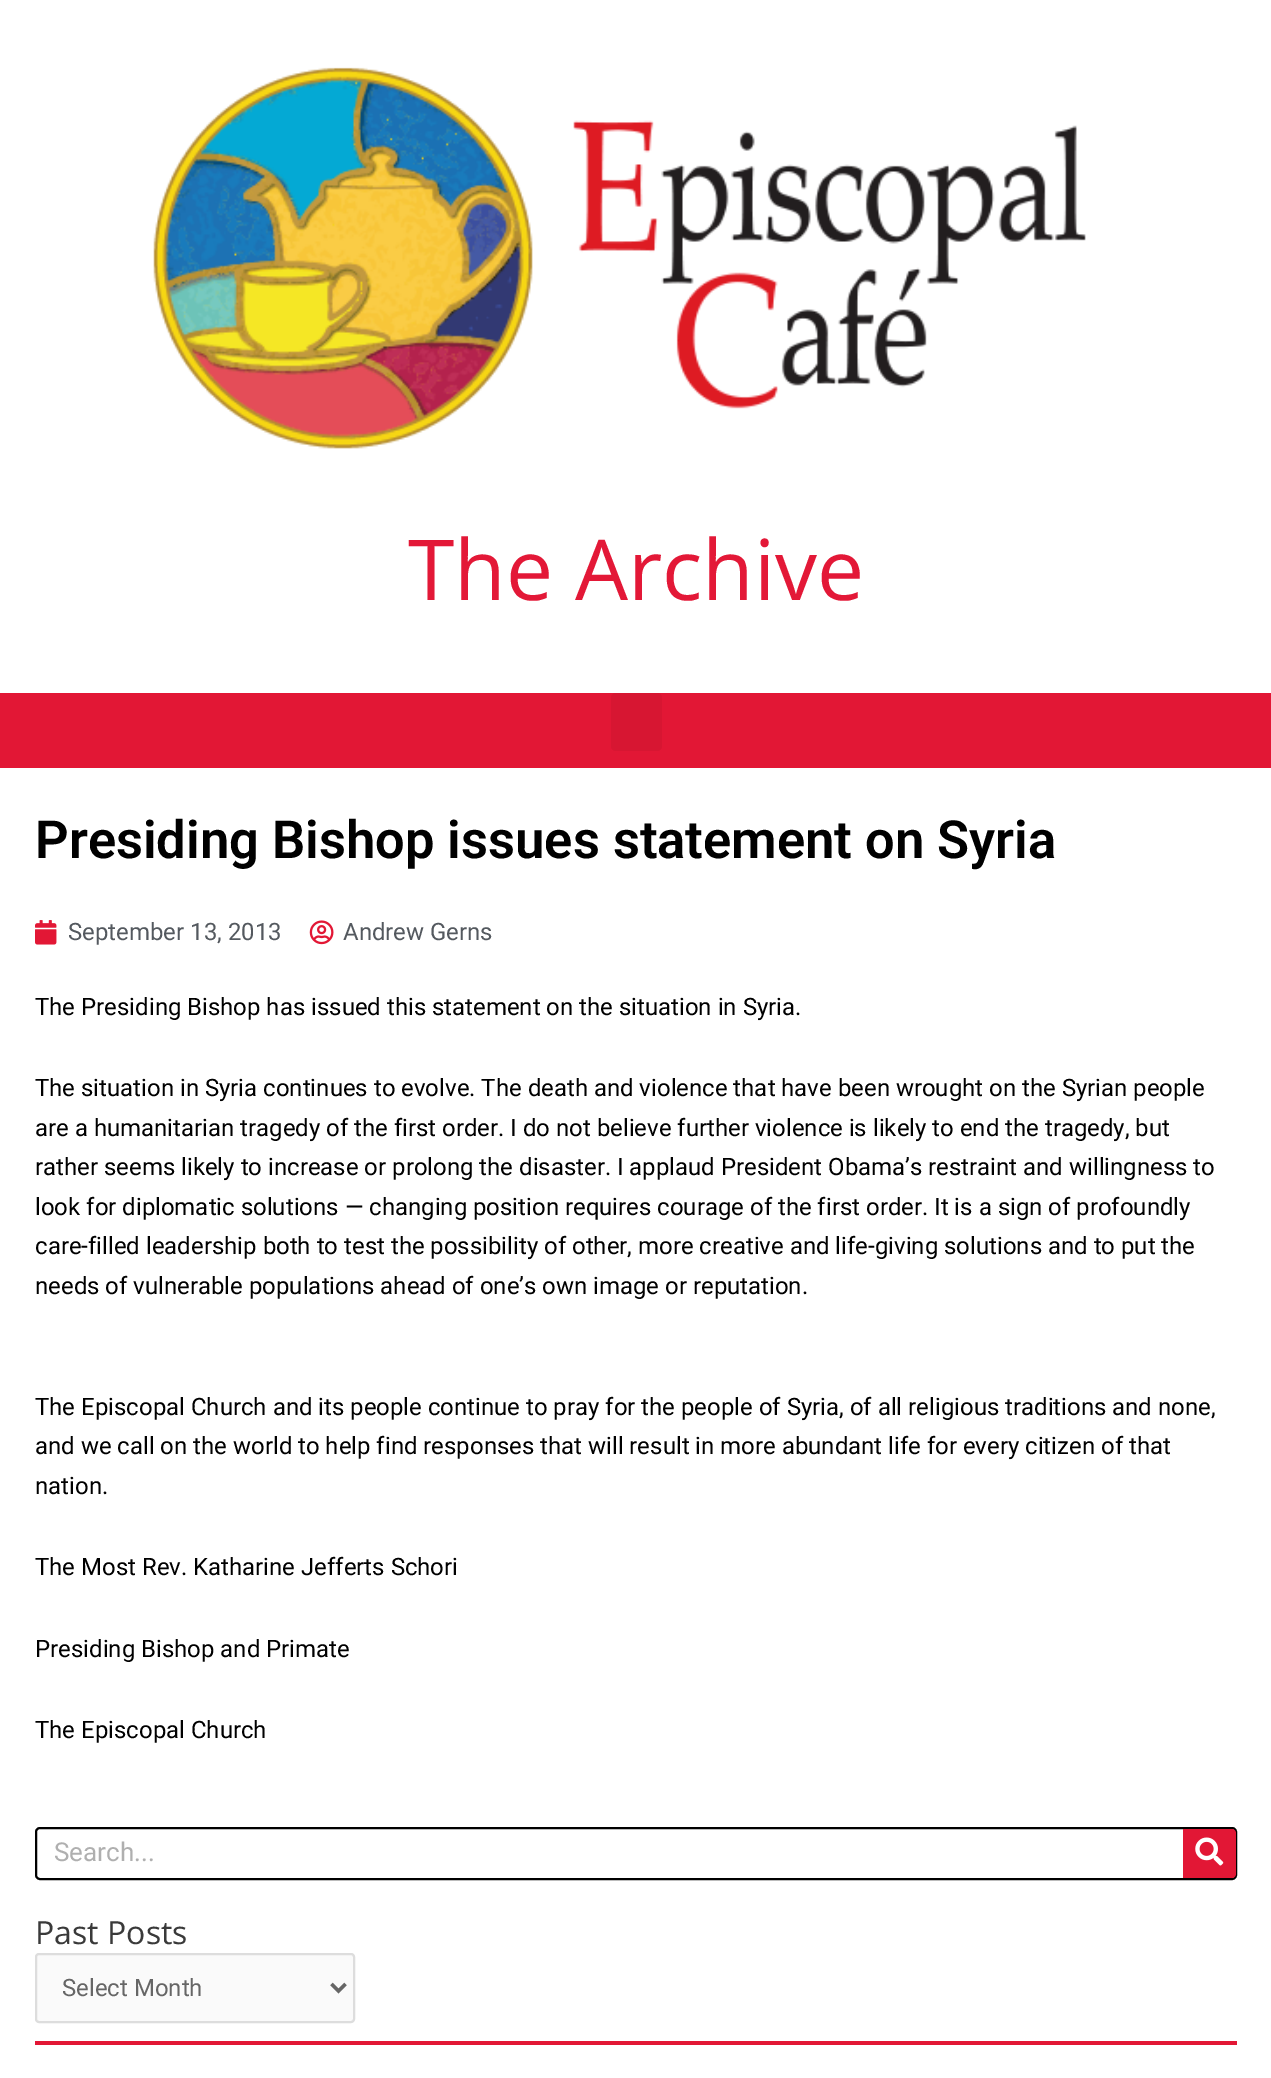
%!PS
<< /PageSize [1271 2078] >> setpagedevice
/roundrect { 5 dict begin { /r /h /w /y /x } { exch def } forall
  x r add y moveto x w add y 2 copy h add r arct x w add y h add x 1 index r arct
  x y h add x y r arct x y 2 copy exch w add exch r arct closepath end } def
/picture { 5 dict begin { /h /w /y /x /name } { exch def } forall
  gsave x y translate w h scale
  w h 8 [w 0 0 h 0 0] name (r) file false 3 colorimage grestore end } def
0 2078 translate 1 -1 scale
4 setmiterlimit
1 setgray
0 0 1271 2078 rectfill
(img1.rgb) 153 67 933 382 picture
/OpenSans-Regular [84 0 0 -84 0 0] selectfont
0.89 0.094 0.216 setrgbcolor
408 600 moveto (The Archive) show
0.886 0.09 0.208 setrgbcolor
0 693 1271 75 rectfill
0.843 0.086 0.196 setrgbcolor
611 693 51 58 5 roundrect fill
/Roboto-SemiBold [52.5 0 0 -52.5 0 0] selectfont
0 setgray
35 858 moveto (Presiding Bishop issues statement on Syria) show
(img2.rgb) 35 920 22 25 picture
/Roboto-Regular [23.95 0 0 -23.95 0 0] selectfont
0.329 0.349 0.373 setrgbcolor
68 940 moveto (September 13, 2013) show
(img3.rgb) 309 920 25 25 picture
343 940 moveto (Andrew Gerns) show
0 setgray
35 1015 moveto (The Presiding Bishop has issued this statement on the situation in Syria.) show
35 1096 moveto (The situation in Syria continues to evolve. The death and violence that have been wrought on the Syrian people) show
35 1136 moveto (are a humanitarian tragedy of the first order. I do not believe further violence is likely to end the tragedy, but) show
35 1175 moveto (rather seems likely to increase or prolong the disaster.) show
617 1175 moveto (I applaud President Obama’s restraint and willingness to) show
35 1215 moveto (look for diplomatic solutions — changing position requires courage of the first order. It is a sign of profoundly) show
35 1254 moveto (care-filled leadership both to test the possibility of other, more creative and life-giving solutions and to put the) show
35 1294 moveto (needs of vulnerable populations ahead of one’s own image or reputation.) show
35 1415 moveto (The Episcopal Church and its people continue to pray for the people of Syria, of all religious traditions and none,) show
35 1454 moveto (and we call on the world to help find responses that will result in more abundant life for every citizen of that) show
35 1494 moveto (nation.) show
35 1575 moveto (The Most Rev. Katharine Jefferts Schori) show
35 1657 moveto (Presiding Bishop and Primate) show
35 1738 moveto (The Episcopal Church) show
2 setlinewidth
36 1828 1200 51 4 roundrect stroke
/Roboto-Regular [26 0 0 -26 0 0] selectfont
0.686 setgray
54 1861 moveto (Search...) show
0.886 0.09 0.208 setrgbcolor
newpath 1183 1829 moveto 1232 1829 lineto 1234 1829 1236 1831 1236 1833 curveto 1236 1874 lineto 1236 1876 1234 1878 1232 1878 curveto 1183 1878 lineto closepath fill
(img4.rgb) 1195 1837 29 29 picture
35 2041 1202 4 rectfill
/OpenSans-Regular [32 0 0 -32 0 0] selectfont
0.227 setgray
35 1944 moveto (Past Posts) show
0.98 setgray
36 1954 318 68 3 roundrect gsave fill grestore
0.867 setgray
stroke
0.4 setgray
3.5 setlinewidth
newpath 331.5 1984 moveto 338.5 1991 lineto 345.5 1984 lineto stroke
/Roboto-Regular [23.95 0 0 -23.95 0 0] selectfont
62 1996 moveto (Select Month) show
showpage
